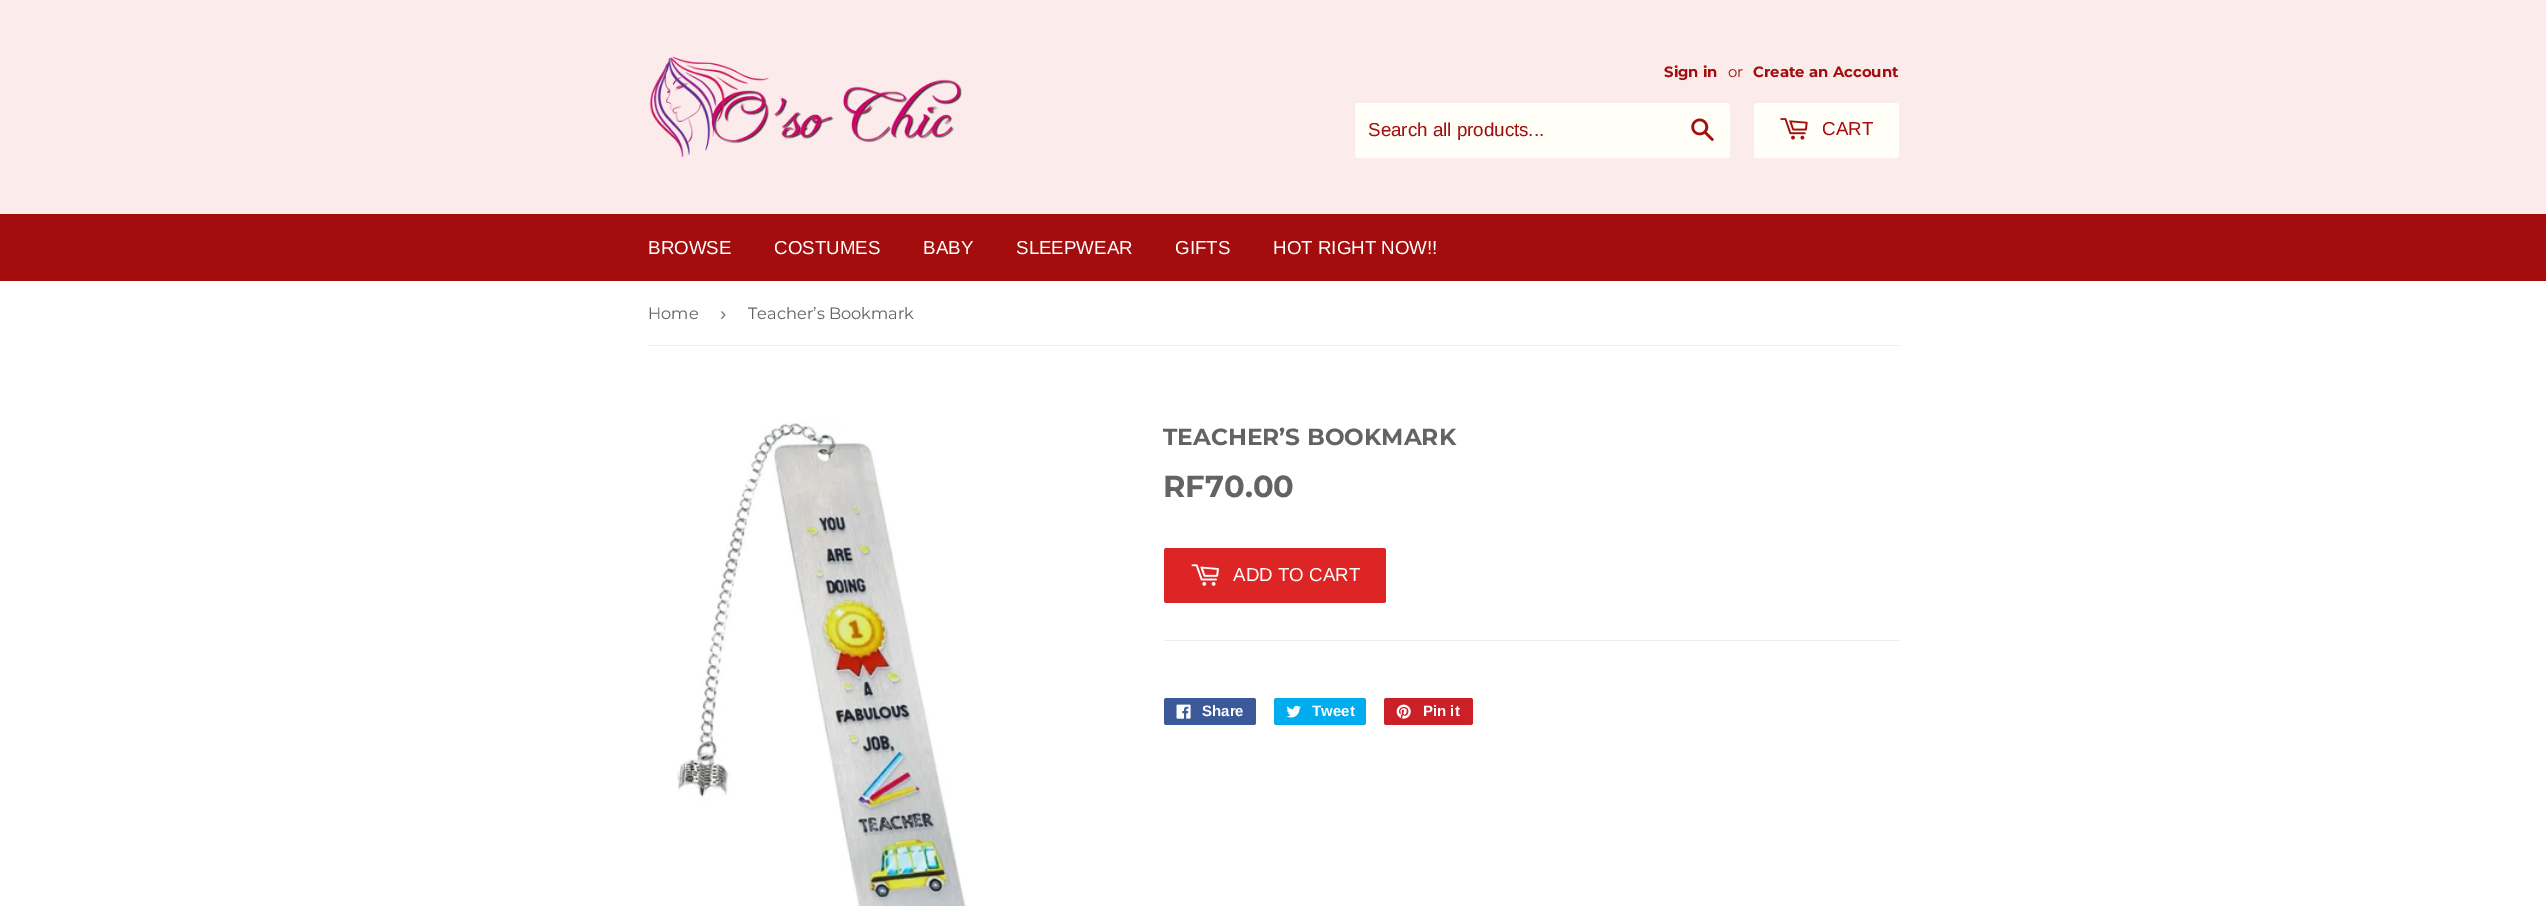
%!PS
<< /PageSize [2546 906] >> setpagedevice
/roundrect { 5 dict begin { /r /h /w /y /x } { exch def } forall
  x r add y moveto x w add y 2 copy h add r arct x w add y h add x 1 index r arct
  x y h add x y r arct x y 2 copy exch w add exch r arct closepath end } def
/picture { 5 dict begin { /h /w /y /x /name } { exch def } forall
  gsave x y translate w h scale
  w h 8 [w 0 0 h 0 0] name (r) file false 3 colorimage grestore end } def
0 906 translate 1 -1 scale
4 setmiterlimit
1 setgray
0 0 2546 906 rectfill
0.988 0.922 0.922 setrgbcolor
0 0 2546 214 rectfill
(img1.rgb) 649 56 313 102 picture
/Montserrat-Bold [14.9 0 0 -14.9 0 0] selectfont
0.639 0.051 0.051 setrgbcolor
1664 77 moveto (Sign in) show
/Montserrat-Regular [14.9 0 0 -14.9 0 0] selectfont
1728 77 moveto (or) show
/Montserrat-Bold [14.9 0 0 -14.9 0 0] selectfont
1753 77 moveto (Create an Account) show
1 1 0.969 setrgbcolor
1355 103 375 55 2.5 roundrect fill
/LiberationSans-Regular [18.75 0 0 -18.75 0 0] selectfont
0.639 0.051 0.051 setrgbcolor
1368 136 moveto (Search all products...) show
(img2.rgb) 1691 118 23 23 picture
1 1 0.969 setrgbcolor
1754 103 145 55 2.5 roundrect fill
(img3.rgb) 1780 118 28 22 picture
0.639 0.051 0.051 setrgbcolor
1822 135 moveto (CART) show
0 214 2546 67 rectfill
1 setgray
648 254 moveto (BROWSE) show
774 254 moveto (COSTUMES) show
923 254 moveto (BABY) show
1016 254 moveto (SLEEPWEAR) show
1175 254 moveto (GIFTS) show
1273 254 moveto (HOT RIGHT NOW!!) show
0.925 setgray
649 345 1250 1 rectfill
/Montserrat-Regular [16.25 0 0 -16.25 0 0] selectfont
0.388 setgray
648 319 moveto (Home) show
/LiberationSans-Regular [18.75 0 0 -18.75 0 0] selectfont
0.463 setgray
720 320 moveto (›) show
/Montserrat-Regular [16.25 0 0 -16.25 0 0] selectfont
0.388 setgray
748 319 moveto (Teacher’s Bookmark) show
(img4.rgb) 677 421 289 485 picture
/Montserrat-Bold [23.3 0 0 -23.3 0 0] selectfont
1163 445 moveto (TEACHER’S BOOKMARK) show
/Montserrat-Bold [30.5 0 0 -30.5 0 0] selectfont
1163 497 moveto (RF70.00) show
0.867 0.145 0.145 setrgbcolor
1164 548 222 55 2.5 roundrect fill
(img5.rgb) 1191 564 28 22 picture
/LiberationSans-Regular [18.75 0 0 -18.75 0 0] selectfont
1 setgray
1233 581 moveto (ADD TO CART) show
0.925 setgray
1164 640 735 1 rectfill
0.231 0.349 0.596 setrgbcolor
1164 698 92 27 2.5 roundrect fill
(img6.rgb) 1176 704 15 15 picture
/LiberationSans-Bold [15 0 0 -15 0 0] selectfont
1 setgray
1202 716 moveto (Share) show
0 0.675 0.929 setrgbcolor
1274 698 92 27 2.5 roundrect fill
(img7.rgb) 1286 705 15 13 picture
1 setgray
1312 716 moveto (Tweet) show
0.796 0.125 0.153 setrgbcolor
1384 698 89 27 2.5 roundrect fill
(img8.rgb) 1396 704 15 15 picture
1 setgray
1423 716 moveto (Pin it) show
showpage
